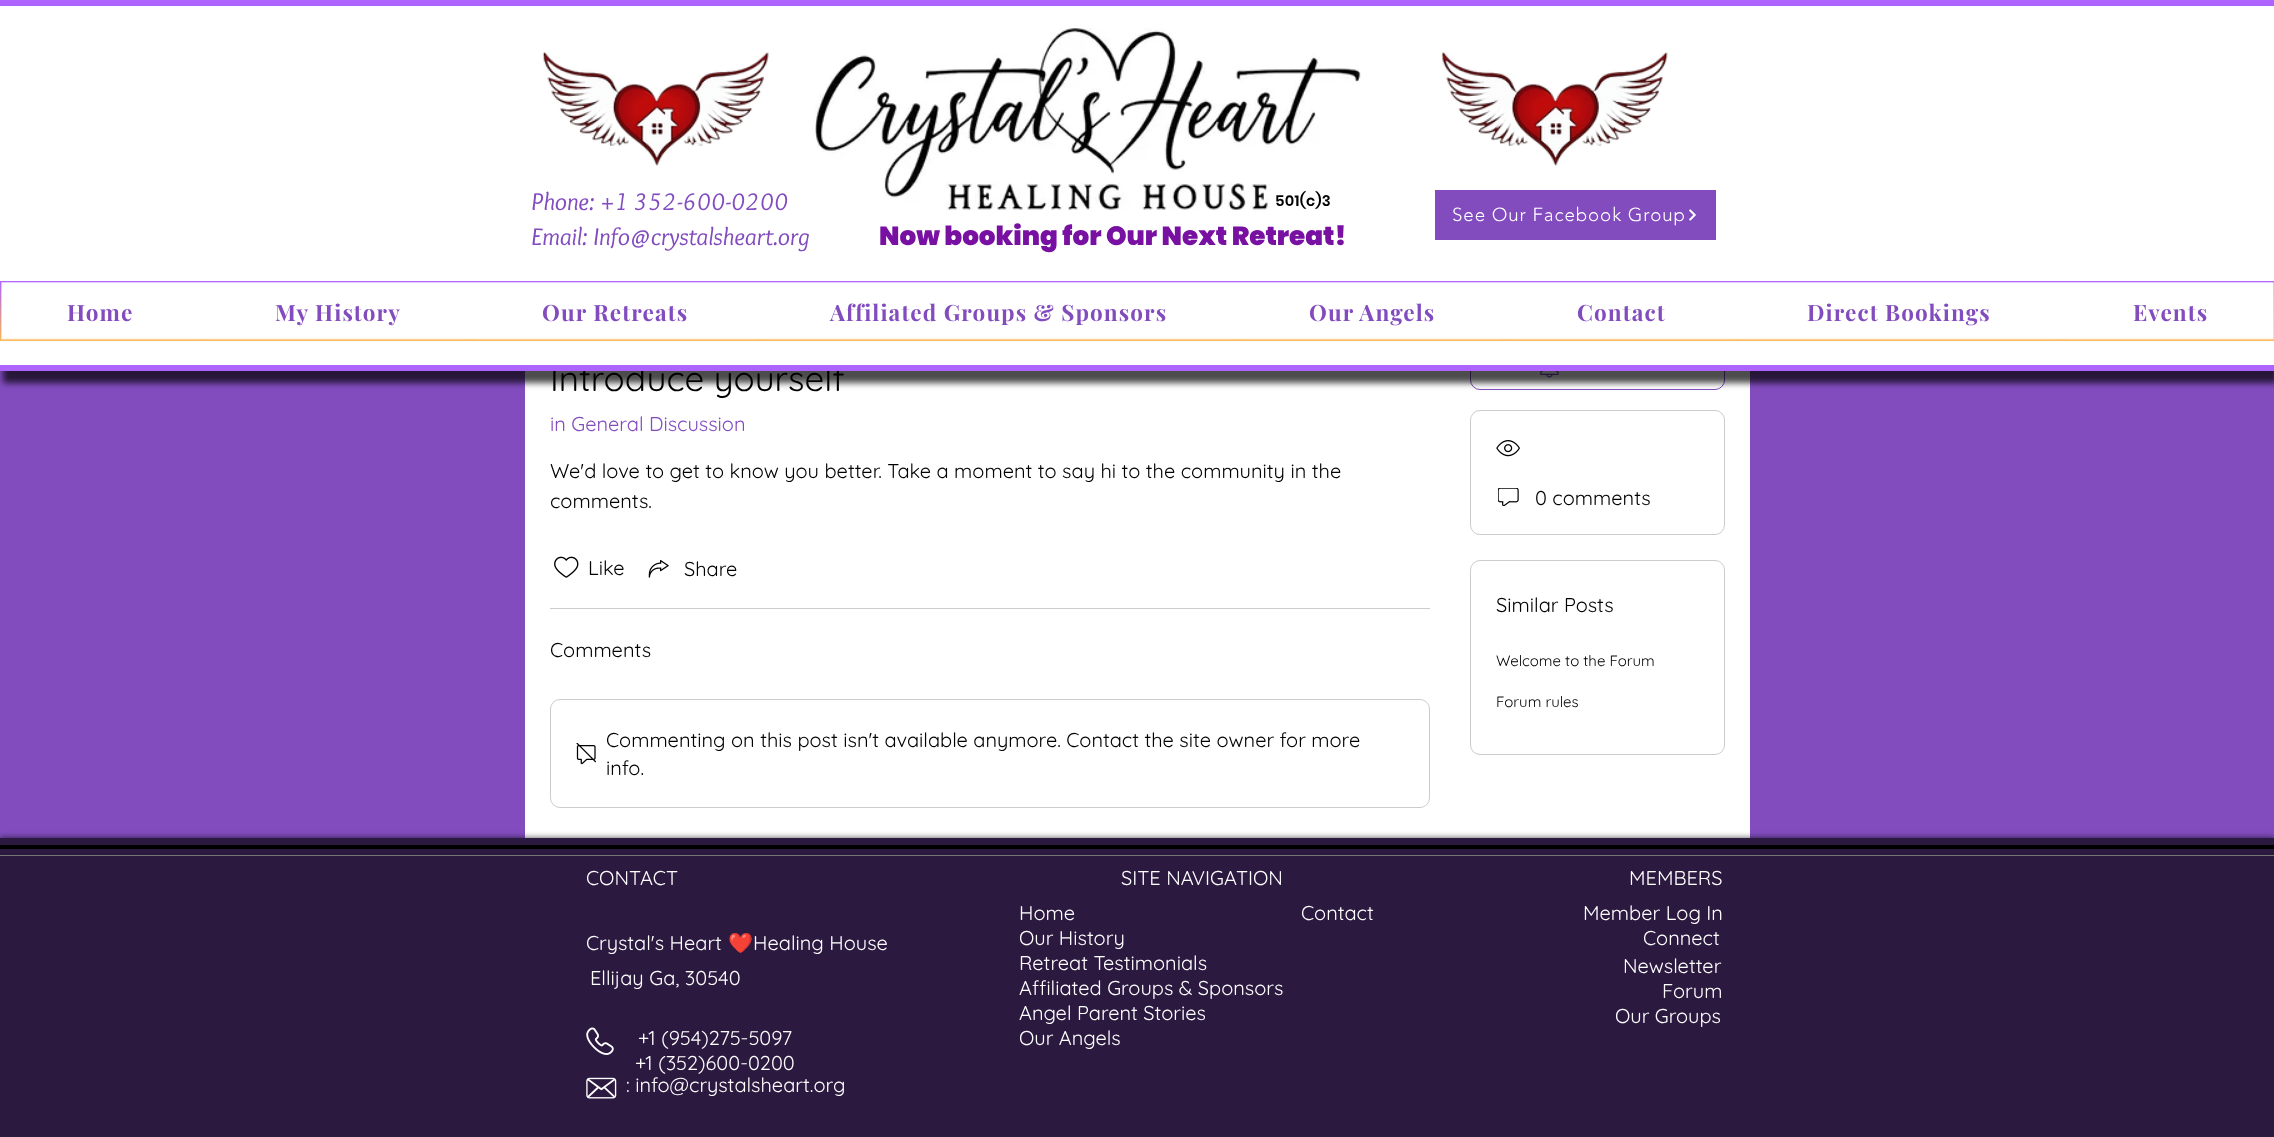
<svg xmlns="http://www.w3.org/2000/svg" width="2274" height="1137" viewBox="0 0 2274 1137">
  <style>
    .t1 { font: 35px Quicksand; fill: #000; }
    .t2 { font: italic 25px Overlock; fill: #824cbf; }
    .t3 { font: 600 15px Poppins; letter-spacing: 0.25px; fill: #000; }
    .t4 { font: 300 18.75px 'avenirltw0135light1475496'; letter-spacing: 0.9px; fill: #fff; }
    .t5 { font: 900 26.25px Poppins; fill: #7810a2; }
    .t6 { font: bold 22.5px Playfair Display; letter-spacing: 1.1px; fill: #824cbf; }
    .t7 { font: 20px Quicksand; fill: #824cbf; }
    .t8 { font: 20px Quicksand; fill: #000; }
    .t9 { font: 15px Quicksand; fill: #000; }
    .t10 { font: 20px Quicksand; fill: #fff; }
    .t11 { font: 20px Noto Color Emoji; fill: #fff; }
  </style>
  <rect width="100%" height="100%" fill="#824cbf"/>
  <rect x="525" y="371" width="1225" height="467" fill="#fff"/>
  <rect x="1470.5" y="345.5" width="254" height="44" rx="9.5" fill="none" stroke="#824cbf"/>
  <image x="1540" y="371" width="19" height="7" href="images/10.png"/>
  <rect x="3" y="11" width="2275" height="372" fill="#000000b3" filter="blur(3px)"/>
  <rect x="0" y="6" width="2274" height="359" fill="#fff"/>
  <rect x="0" y="0" width="2274" height="6" fill="#ae65ff"/>
  <text x="550" y="391" class="t1">Introduce yourself</text>
  <rect x="0" y="365" width="2274" height="6" fill="#ae65ff"/>
  <image x="542" y="52" width="227" height="114" href="images/1.png"/>
  <image x="815" y="28" width="546" height="182" href="images/2.png"/>
  <image x="1441" y="52" width="227" height="114" href="images/3.png"/>
  <text x="531" y="210" class="t2">Phone: +1 352-600-0200</text>
  <text x="531" y="245" class="t2">Email: Info@crystalsheart.org</text>
  <text x="1275" y="206" class="t3">501(c)3</text>
  <rect x="1435" y="190" width="281" height="50" fill="#824cbf"/>
  <text x="1452" y="221" class="t4">See Our Facebook Group</text>
  <image x="1689" y="209" width="7" height="12" href="images/4.png"/>
  <text x="879" y="245" class="t5">Now booking for Our Next Retreat!</text>
  <image x="0" y="281" width="2274" height="60" href="images/5.png"/>
  <rect x="1" y="283" width="198" height="57" fill="#ffffff42"/>
  <text x="67" y="321" class="t6">Home</text>
  <rect x="209" y="338" width="257" height="2" fill="#ffffff42"/>
  <text x="275" y="321" class="t6">My History</text>
  <rect x="476" y="338" width="279" height="2" fill="#ffffff42"/>
  <text x="542" y="321" class="t6">Our Retreats</text>
  <rect x="765" y="338" width="469" height="2" fill="#ffffff42"/>
  <text x="830" y="321" class="t6">Affiliated Groups &amp; Sponsors</text>
  <rect x="1244" y="338" width="257" height="2" fill="#ffffff42"/>
  <text x="1309" y="321" class="t6">Our Angels</text>
  <rect x="1511" y="338" width="220" height="2" fill="#ffffff42"/>
  <text x="1577" y="321" class="t6">Contact</text>
  <rect x="1741" y="338" width="317" height="2" fill="#ffffff42"/>
  <text x="1807" y="321" class="t6">Direct Bookings</text>
  <rect x="2068" y="283" width="206" height="57" fill="#ffffff42"/>
  <text x="2133" y="321" class="t6">Events</text>
  <image x="0" y="281" width="2274" height="60" href="images/6.png"/>
  <text x="550" y="431" class="t7">in General Discussion</text>
  <text x="550" y="478" class="t8">We'd love to get to know you better. Take a moment to say hi to the community in the</text>
  <text x="550" y="508" class="t8">comments.</text>
  <image x="554" y="556" width="25" height="22" href="images/7.png"/>
  <text x="588" y="575" class="t8">Like</text>
  <image x="648" y="560" width="21" height="18" href="images/8.png"/>
  <text x="684" y="576" class="t8">Share</text>
  <rect x="550" y="608" width="880" height="1" fill="#ccc"/>
  <text x="550" y="657" class="t8">Comments</text>
  <rect x="550.5" y="699.5" width="879" height="108" rx="9.5" fill="none" stroke="#ccc"/>
  <image x="576" y="743" width="20" height="22" href="images/9.png"/>
  <text x="606" y="747" class="t8">Commenting on this post isn't available anymore. Contact the site owner for more</text>
  <text x="606" y="775" class="t8">info.</text>
  <rect x="1470.5" y="410.5" width="254" height="124" rx="9.5" fill="none" stroke="#ccc"/>
  <image x="1496" y="440" width="24" height="17" href="images/11.png"/>
  <image x="1498" y="488" width="21" height="18" href="images/12.png"/>
  <text x="1535" y="505" class="t8">0 comments</text>
  <rect x="1470.5" y="560.5" width="254" height="194" rx="9.5" fill="none" stroke="#ccc"/>
  <text x="1496" y="612" class="t8">Similar Posts</text>
  <text x="1496" y="666" class="t9">Welcome to the Forum</text>
  <text x="1496" y="707" class="t9">Forum rules</text>
  <rect x="0" y="838" width="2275" height="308" fill="#000000b3" filter="blur(3px)"/>
  <rect x="0" y="838" width="2274" height="299" fill="#2b1940"/>
  <rect x="0" y="845" width="2274" height="4" fill="#000"/>
  <rect x="0" y="855" width="2274" height="1" fill="#757575"/>
  <text x="586" y="885" class="t10">CONTACT</text>
  <text x="586" y="950" class="t10">Crystal's Heart</text>
  <text x="728" y="950" class="t11">❤️</text>
  <text x="753" y="950" class="t10">Healing House</text>
  <image x="586" y="1027" width="28" height="28" href="images/13.png"/>
  <text x="638" y="1045" class="t10">+1 (954)275-5097</text>
  <text x="635" y="1070" class="t10">+1 (352)600-0200</text>
  <image x="586" y="1077" width="31" height="22" href="images/14.png"/>
  <text x="626" y="1092" class="t10">: info@crystalsheart.org</text>
  <text x="1121" y="885" class="t10">SITE NAVIGATION</text>
  <text x="1019" y="920" class="t10">Home</text>
  <text x="1301" y="920" class="t10">Contact</text>
  <text x="1019" y="945" class="t10">Our History</text>
  <text x="1019" y="970" class="t10">Retreat Testimonials</text>
  <text x="1019" y="995" class="t10">Affiliated Groups &amp; Sponsors</text>
  <text x="1019" y="1020" class="t10">Angel Parent Stories</text>
  <text x="1019" y="1045" class="t10">Our Angels</text>
  <text x="1629" y="885" class="t10">MEMBERS</text>
  <text x="1583" y="920" class="t10">Member Log In</text>
  <text x="1643" y="945" class="t10">Connect</text>
  <text x="1623" y="973" class="t10">Newsletter</text>
  <text x="1662" y="998" class="t10">Forum</text>
  <text x="1615" y="1023" class="t10">Our Groups</text>
  <text x="590" y="985" class="t10">Ellijay Ga, 30540</text>
</svg>
